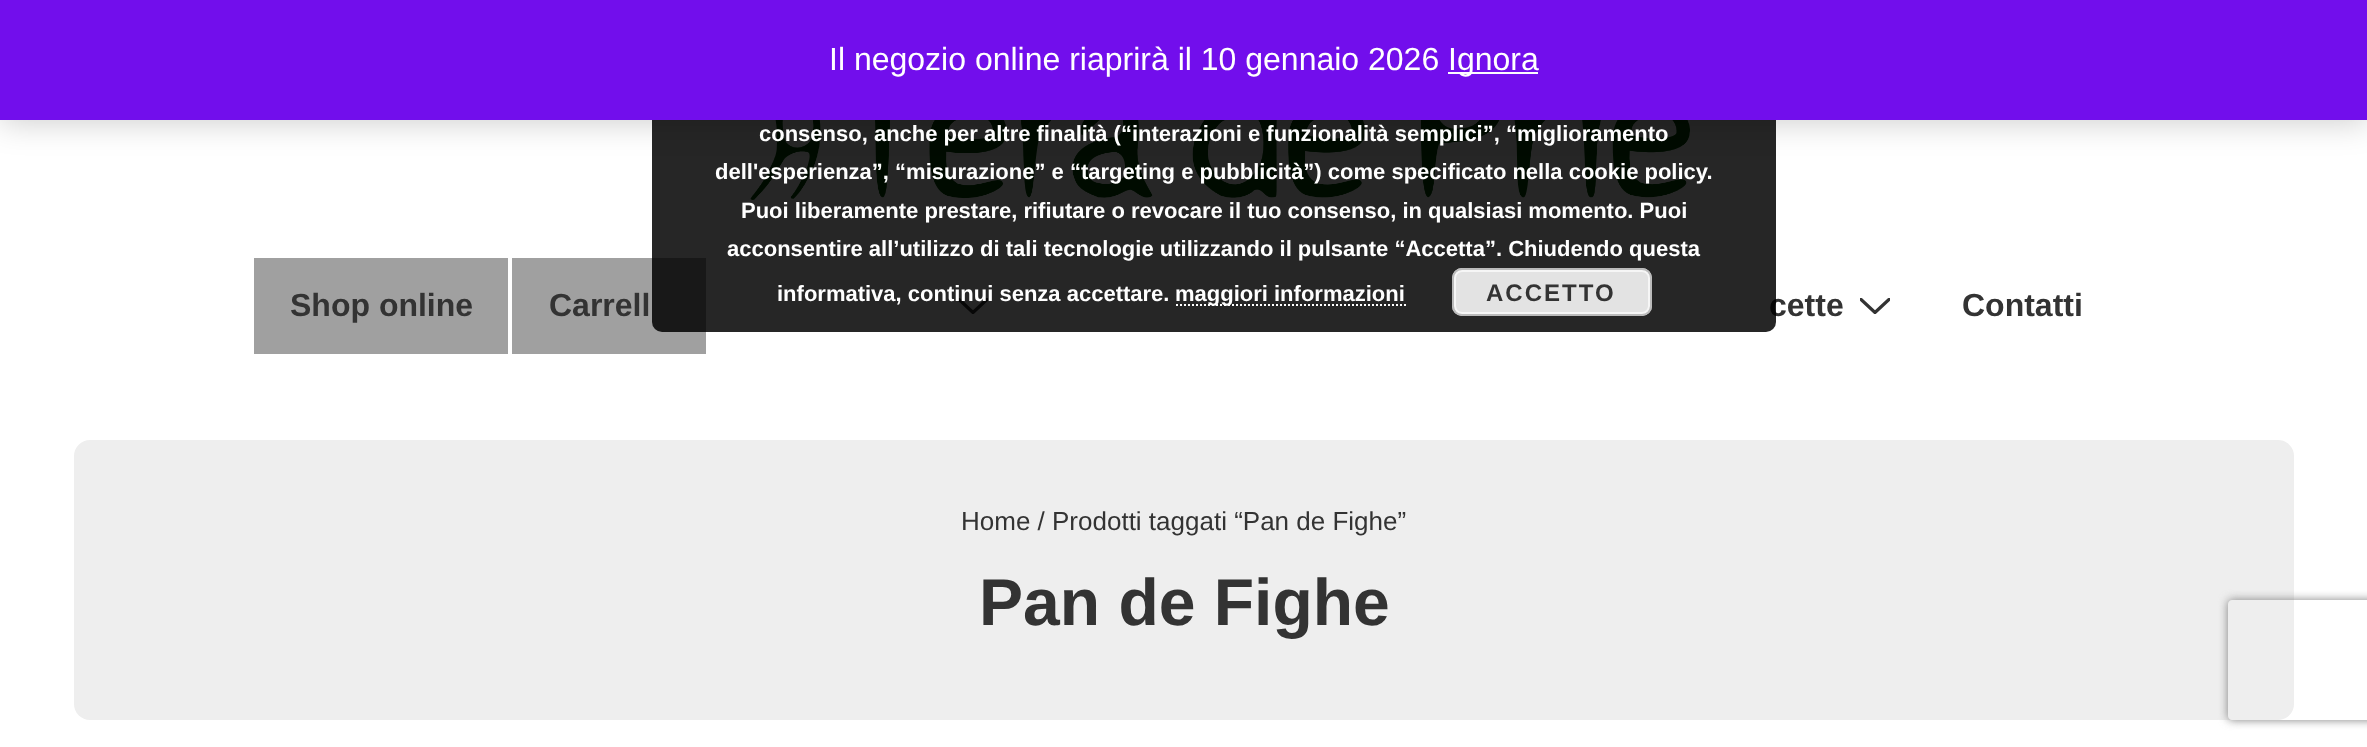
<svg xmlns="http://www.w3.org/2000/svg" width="2367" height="747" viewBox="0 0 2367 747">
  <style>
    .t1 { font: bold 32px Liberation Sans; fill: #333; }
    .t2 { font: 32px Liberation Sans; fill: #fff; }
    .t3 { font: bold 22px Liberation Sans; fill: #fff; }
    .t4 { font: bold 24px Liberation Sans; letter-spacing: 2px; fill: #333; }
    .t5 { font: 26px Liberation Sans; fill: #333; }
    .t6 { font: bold 66px Liberation Sans; fill: #333; }
  </style>
  <defs>
    <clipPath id="clip1"><rect x="958" y="298" width="30" height="16"/></clipPath>
    <clipPath id="clip2"><rect x="1860" y="298" width="30" height="16"/></clipPath>
    <clipPath id="clip3"><path d="M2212 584H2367V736H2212ZM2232 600H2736C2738 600 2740 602 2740 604V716C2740 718 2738 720 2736 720H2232C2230 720 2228 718 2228 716V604C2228 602 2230 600 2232 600Z" clip-rule="evenodd"/></clipPath>
  </defs>
  <rect width="100%" height="100%" fill="#fff"/>
  <image x="750" y="120" width="940" height="80" href="images/1.png"/>
  <rect x="512" y="258" width="194" height="96" fill="#a0a0a0"/>
  <g clip-path="url(#clip1)">
    <path d="M959 299.5L973 312.5L987 299.5" fill="none" stroke="#333" stroke-width="3.3" stroke-linecap="round"/>
  </g>
  <text x="1769" y="316" class="t1">cette</text>
  <rect x="652" y="60" width="1124" height="272" rx="10" fill="#000000d9"/>
  <rect x="0" y="2" width="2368" height="120" fill="#00000033" filter="blur(16px)"/>
  <rect x="0" y="0" width="2367" height="120" fill="#720eec"/>
  <text x="829" y="70" class="t2">Il negozio online riaprirà il 10 gennaio 2026</text>
  <rect x="1448" y="72" width="90" height="2" fill="#fcfbfe"/>
  <text x="1448" y="70" class="t2">Ignora</text>
  <text x="759" y="141" class="t3">consenso, anche per altre finalità (“interazioni e funzionalità semplici”, “miglioramento</text>
  <text x="715" y="179" class="t3">dell'esperienza”, “misurazione” e “targeting e pubblicità”) come specificato nella cookie policy.</text>
  <text x="741" y="218" class="t3">Puoi liberamente prestare, rifiutare o revocare il tuo consenso, in qualsiasi momento. Puoi</text>
  <text x="727" y="256" class="t3">acconsentire all’utilizzo di tali tecnologie utilizzando il pulsante “Accetta”. Chiudendo questa</text>
  <text x="777" y="301" class="t3">informativa, continui senza accettare.</text>
  <path d="M1176 305H1406" fill="none" stroke="#fff" stroke-width="2" stroke-dasharray="2 2"/>
  <text x="1175" y="301" class="t3">maggiori informazioni</text>
  <rect x="1452" y="268" width="200" height="48" rx="10" fill="#e3e3e3"/>
  <rect x="1455" y="271" width="194" height="42" rx="7" fill="none" stroke="#f6f6f6" stroke-width="2"/>
  <rect x="1453" y="269" width="198" height="46" rx="9" fill="none" stroke="#bbb" stroke-width="2"/>
  <text x="1486" y="301" class="t4">ACCETTO</text>
  <rect x="254" y="258" width="254" height="96" fill="#a0a0a0"/>
  <text x="290" y="316" class="t1">Shop online</text>
  <text x="549" y="316" class="t1">Carrell</text>
  <g clip-path="url(#clip2)">
    <path d="M1861 299.5L1875 312.5L1889 299.5" fill="none" stroke="#333" stroke-width="3.3" stroke-linecap="round"/>
  </g>
  <text x="1962" y="316" class="t1">Contatti</text>
  <rect x="74" y="440" width="2220" height="280" rx="16" fill="#eee"/>
  <text x="961" y="530" class="t5">Home / Prodotti taggati “Pan de Fighe”</text>
  <text x="979" y="625" class="t6">Pan de Fighe</text>
  <g clip-path="url(#clip3)">
    <rect x="2228" y="600" width="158" height="120" rx="4" fill="#808080" filter="blur(5px)"/>
  </g>
</svg>
